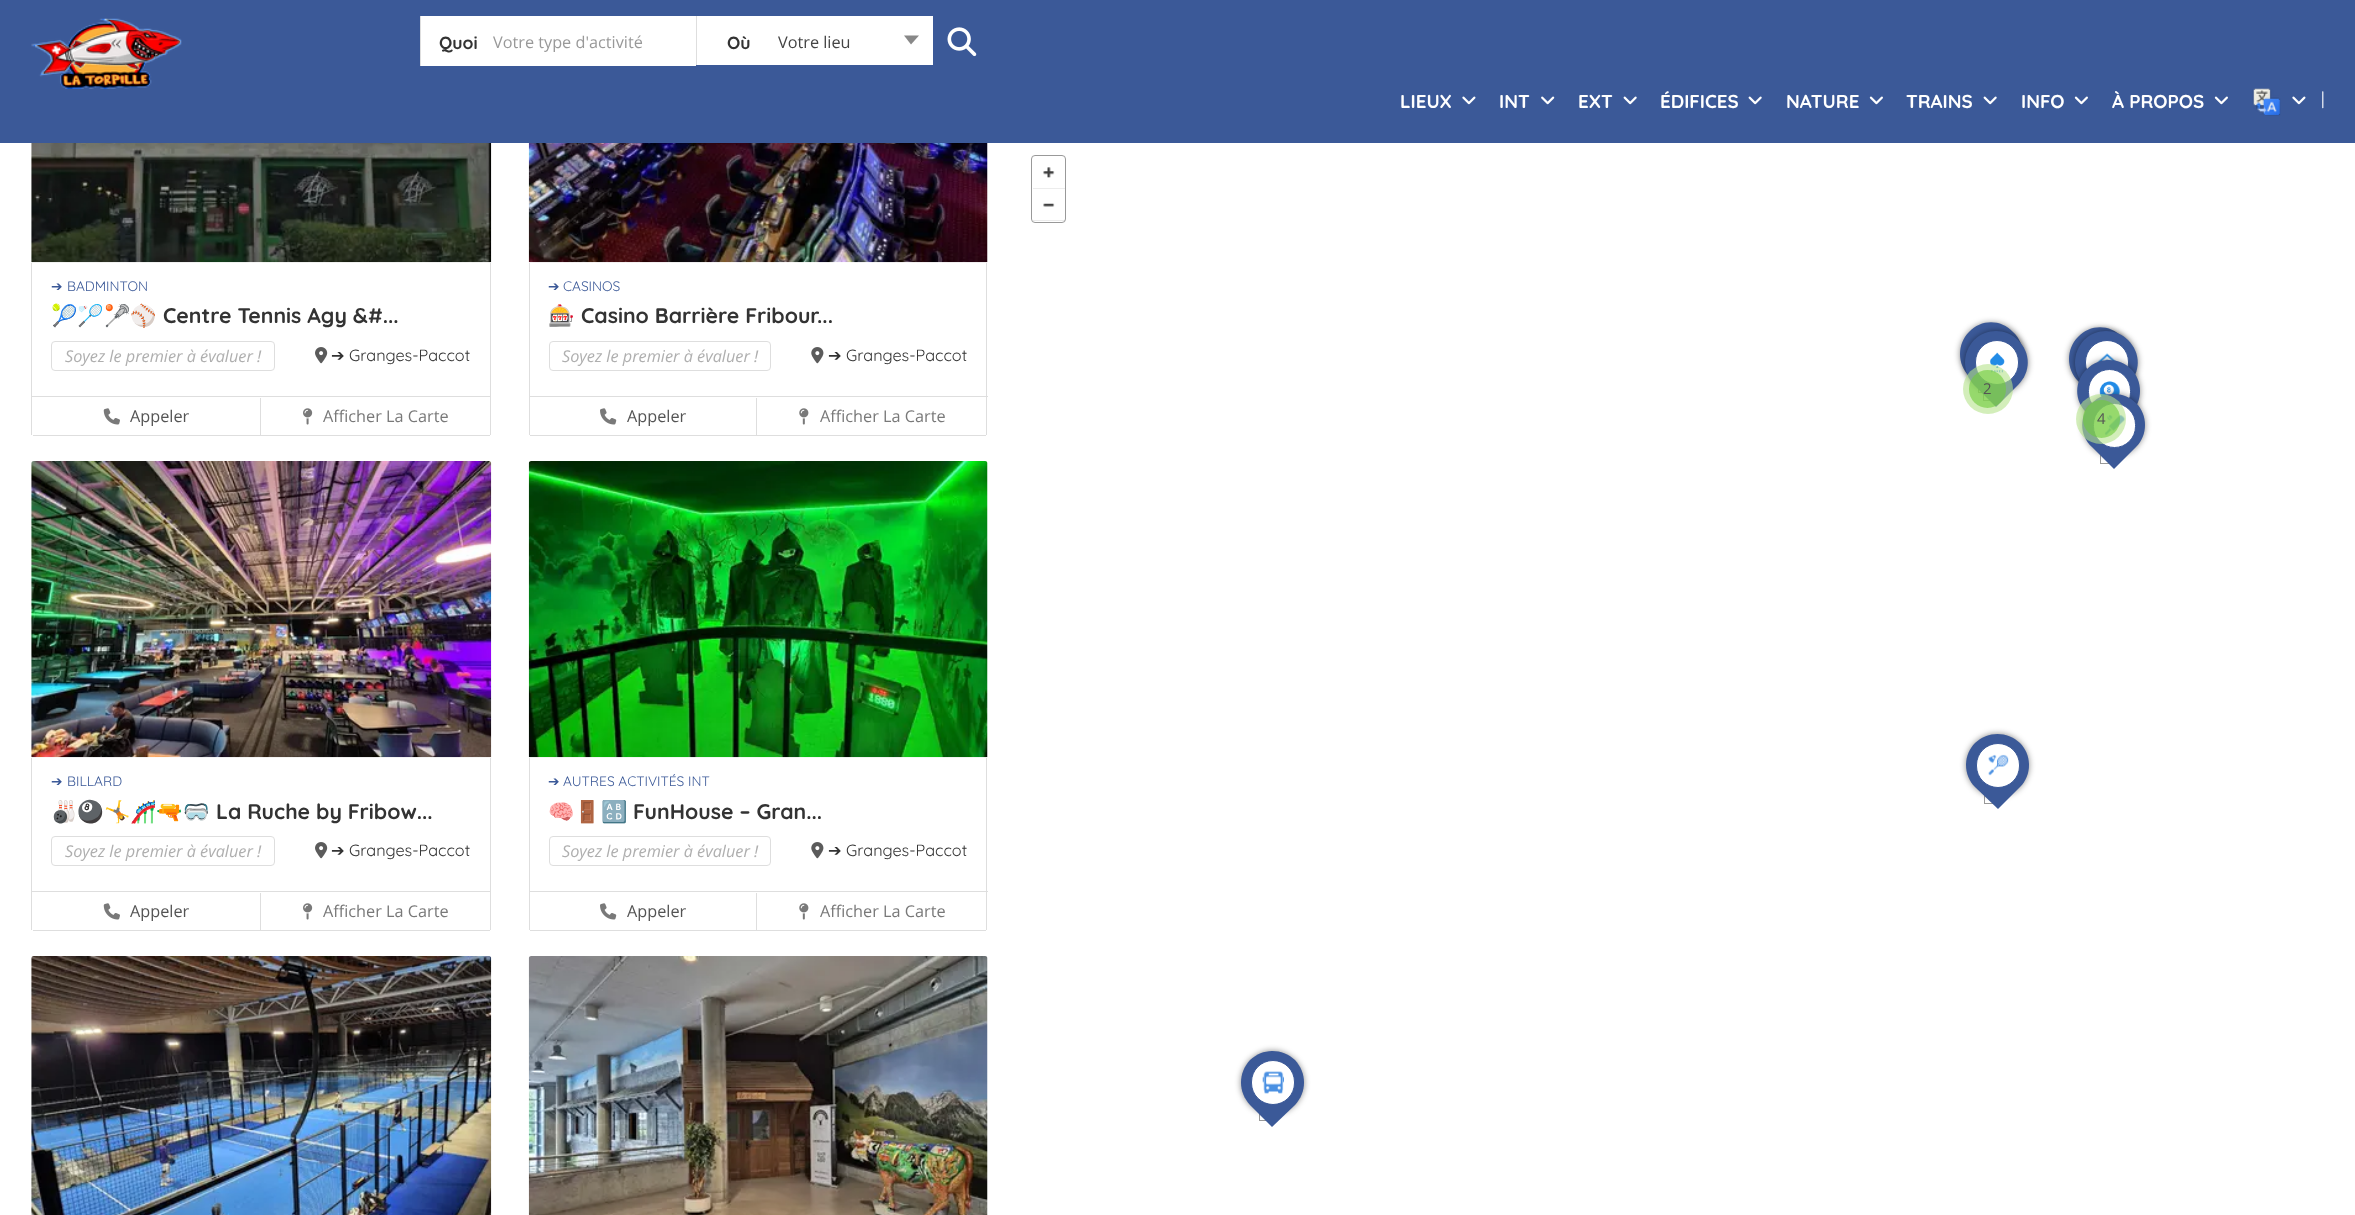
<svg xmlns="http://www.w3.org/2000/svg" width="2355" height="1215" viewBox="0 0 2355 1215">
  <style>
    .t1 { font: bold 17.5px Quicksand; fill: #333; }
    .t2 { font: 16.25px Open Sans; fill: #999; }
    .t3 { font: 16.25px Open Sans; fill: #444; }
    .t4 { font: bold 18.75px Quicksand; fill: #fff; }
    .t5 { font: 17.5px Quicksand; fill: #fff; }
    .t6 { font: 13.75px DejaVu Sans; fill: #3b5998; }
    .t7 { font: 13.75px Quicksand; fill: #3b5998; }
    .t8 { font: bold 21.25px Noto Color Emoji; fill: #333; }
    .t9 { font: bold 21.25px Quicksand; fill: #333; }
    .t10 { font: italic 16.25px Open Sans; fill: #afafaf; }
    .t11 { font: 16.25px DejaVu Sans; fill: #333; }
    .t12 { font: 16.25px Quicksand; fill: #333; }
    .t13 { font: 16.25px Open Sans; fill: #545454; }
    .t14 { font: 16.25px Open Sans; fill: #797979; }
    .t15 { font: 15px Open Sans; fill: #545454; }
  </style>
  <rect width="100%" height="100%" fill="#fff"/>
  <rect x="0" y="0" width="2355" height="143" fill="#3b5998"/>
  <image x="31" y="18" width="151" height="71" href="images/1.png"/>
  <rect x="421" y="16" width="275" height="50" fill="#fff"/>
  <rect x="420" y="16" width="1" height="50" fill="#dedede"/>
  <text x="439" y="49" class="t1">Quoi</text>
  <text x="493" y="48" class="t2">Votre type d'activité</text>
  <rect x="697" y="16" width="236" height="49" fill="#fff"/>
  <rect x="696" y="16" width="1" height="49" fill="#dedede"/>
  <text x="727" y="49" class="t1">Où</text>
  <text x="778" y="48" class="t3">Votre lieu</text>
  <path d="M904 35.5H919L911 44.5Z" fill="#888"/>
  <image x="947" y="27" width="30" height="30" href="images/2.png"/>
  <text x="1400" y="108" class="t4">LIEUX</text>
  <image x="1462" y="96" width="14" height="9" href="images/3.png"/>
  <text x="1499" y="108" class="t4">INT</text>
  <image x="1541" y="96" width="14" height="9" href="images/4.png"/>
  <text x="1578" y="108" class="t4">EXT</text>
  <image x="1623" y="96" width="14" height="9" href="images/5.png"/>
  <text x="1660" y="108" class="t4">ÉDIFICES</text>
  <image x="1748" y="96" width="14" height="9" href="images/5.png"/>
  <text x="1786" y="108" class="t4">NATURE</text>
  <image x="1869" y="96" width="14" height="9" href="images/6.png"/>
  <text x="1906" y="108" class="t4">TRAINS</text>
  <image x="1983" y="96" width="14" height="9" href="images/5.png"/>
  <text x="2021" y="108" class="t4">INFO</text>
  <image x="2074" y="96" width="14" height="9" href="images/6.png"/>
  <text x="2112" y="108" class="t4">À PROPOS</text>
  <image x="2214" y="96" width="14" height="9" href="images/6.png"/>
  <image x="2252" y="88" width="29" height="28" href="images/7.png"/>
  <image x="2292" y="96" width="14" height="9" href="images/3.png"/>
  <text x="2321" y="105" class="t5">|</text>
  <image x="31" y="143" width="461" height="120" href="images/8.png"/>
  <rect x="490" y="263" width="1" height="172" fill="#dedede"/>
  <rect x="31" y="396" width="460" height="1" fill="#dedede"/>
  <rect x="31" y="263" width="1" height="172" fill="#dedede"/>
  <text x="51" y="291" class="t6">➔</text>
  <text x="67" y="291" class="t7">BADMINTON</text>
  <text x="51" y="323" class="t8">🎾🏸🥍⚾</text>
  <text x="163" y="323" class="t9">Centre Tennis Agy &amp;#...</text>
  <rect x="51.5" y="341.5" width="223" height="29" rx="3.5" fill="none" stroke="#dedede"/>
  <text x="65" y="362" class="t10">Soyez le premier à évaluer !</text>
  <image x="315" y="347" width="13" height="17" href="images/9.png"/>
  <text x="331" y="361" class="t11">➔</text>
  <text x="349" y="361" class="t12">Granges-Paccot</text>
  <rect x="33" y="435" width="457" height="1" fill="#dedede"/>
  <rect x="260" y="398" width="1" height="37" fill="#dedede"/>
  <image x="103" y="408" width="17" height="17" href="images/10.png"/>
  <text x="130" y="422" class="t13">Appeler</text>
  <image x="303" y="408" width="10" height="17" href="images/11.png"/>
  <text x="323" y="422" class="t14">Afficher La Carte</text>
  <image x="528" y="143" width="460" height="120" href="images/12.png"/>
  <rect x="986" y="263" width="1" height="172" fill="#dedede"/>
  <rect x="529" y="396" width="459" height="1" fill="#dedede"/>
  <rect x="529" y="263" width="1" height="172" fill="#dedede"/>
  <text x="548" y="291" class="t6">➔</text>
  <text x="563" y="291" class="t7">CASINOS</text>
  <text x="548" y="323" class="t8">🎰</text>
  <text x="581" y="323" class="t9">Casino Barrière Fribour...</text>
  <rect x="549.5" y="341.5" width="221" height="29" rx="3.5" fill="none" stroke="#dedede"/>
  <text x="562" y="362" class="t10">Soyez le premier à évaluer !</text>
  <image x="811" y="347" width="13" height="17" href="images/13.png"/>
  <text x="828" y="361" class="t11">➔</text>
  <text x="846" y="361" class="t12">Granges-Paccot</text>
  <rect x="530" y="435" width="456" height="1" fill="#dedede"/>
  <rect x="756" y="398" width="1" height="37" fill="#dedede"/>
  <image x="600" y="408" width="17" height="17" href="images/14.png"/>
  <text x="627" y="422" class="t13">Appeler</text>
  <image x="799" y="408" width="10" height="17" href="images/15.png"/>
  <text x="820" y="422" class="t14">Afficher La Carte</text>
  <image x="31" y="461" width="461" height="297" href="images/16.png"/>
  <rect x="490" y="758" width="1" height="172" fill="#dedede"/>
  <rect x="31" y="891" width="460" height="1" fill="#dedede"/>
  <rect x="31" y="758" width="1" height="172" fill="#dedede"/>
  <text x="51" y="786" class="t6">➔</text>
  <text x="67" y="786" class="t7">BILLARD</text>
  <text x="51" y="819" class="t8">🎳🎱🤸🎢🔫🥽</text>
  <text x="216" y="819" class="t9">La Ruche by Fribow...</text>
  <rect x="51.5" y="836.5" width="223" height="29" rx="3.5" fill="none" stroke="#dedede"/>
  <text x="65" y="857" class="t10">Soyez le premier à évaluer !</text>
  <image x="315" y="842" width="13" height="17" href="images/9.png"/>
  <text x="331" y="856" class="t11">➔</text>
  <text x="349" y="856" class="t12">Granges-Paccot</text>
  <rect x="33" y="930" width="457" height="1" fill="#dedede"/>
  <rect x="260" y="893" width="1" height="37" fill="#dedede"/>
  <image x="103" y="903" width="17" height="17" href="images/10.png"/>
  <text x="130" y="917" class="t13">Appeler</text>
  <image x="303" y="903" width="10" height="17" href="images/11.png"/>
  <text x="323" y="917" class="t14">Afficher La Carte</text>
  <image x="528" y="461" width="460" height="297" href="images/17.png"/>
  <rect x="986" y="758" width="1" height="172" fill="#dedede"/>
  <rect x="529" y="891" width="459" height="1" fill="#dedede"/>
  <rect x="529" y="758" width="1" height="172" fill="#dedede"/>
  <text x="548" y="786" class="t6">➔</text>
  <text x="563" y="786" class="t7">AUTRES ACTIVITÉS INT</text>
  <text x="548" y="819" class="t8">🧠🚪🔠</text>
  <text x="633" y="819" class="t9">FunHouse – Gran...</text>
  <rect x="549.5" y="836.5" width="221" height="29" rx="3.5" fill="none" stroke="#dedede"/>
  <text x="562" y="857" class="t10">Soyez le premier à évaluer !</text>
  <image x="811" y="842" width="13" height="17" href="images/13.png"/>
  <text x="828" y="856" class="t11">➔</text>
  <text x="846" y="856" class="t12">Granges-Paccot</text>
  <rect x="530" y="930" width="456" height="1" fill="#dedede"/>
  <rect x="756" y="893" width="1" height="37" fill="#dedede"/>
  <image x="600" y="903" width="17" height="17" href="images/14.png"/>
  <text x="627" y="917" class="t13">Appeler</text>
  <image x="799" y="903" width="10" height="17" href="images/15.png"/>
  <text x="820" y="917" class="t14">Afficher La Carte</text>
  <image x="31" y="956" width="461" height="259" href="images/18.png"/>
  <image x="528" y="956" width="460" height="259" href="images/19.png"/>
  <rect x="1031.5" y="155.5" width="34" height="67" rx="3.5" fill="none" stroke="#999"/>
  <image x="1043" y="167" width="12" height="11" href="images/20.png"/>
  <rect x="1033" y="188" width="32" height="1" fill="#ececec"/>
  <image x="1043" y="203" width="12" height="4" href="images/21.png"/>
  <rect x="1033" y="220" width="32" height="1" fill="#00000014"/>
  <rect x="1978.5" y="378.5" width="14" height="14" fill="none" stroke="#999"/>
  <rect x="1960" y="323" width="63" height="62" rx="31" fill="#00000078" filter="blur(3px)"/>
  <path d="M1969 332C1981 319 2001 319 2013 332C2026 344 2026 364 2013 376L1991 398L1969 376C1957 364 1957 344 1969 332Z" fill="#3b5998"/>
  <rect x="2069" y="328" width="62" height="62" rx="31" fill="#00000078" filter="blur(3px)"/>
  <path d="M2078 337C2090 324 2110 324 2122 337C2134 349 2134 369 2122 381L2100 403L2078 381C2066 369 2066 349 2078 337Z" fill="#3b5998"/>
  <rect x="1984" y="395" width="5" height="1" fill="#fff"/>
  <rect x="1983.5" y="386.5" width="14" height="14" fill="none" stroke="#999"/>
  <rect x="1965" y="331" width="63" height="63" rx="31.5" fill="#00000078" filter="blur(3px)"/>
  <path d="M1974 340C1986 328 2006 328 2018 340C2031 353 2031 372 2018 385L1996 407L1974 385C1962 372 1962 353 1974 340Z" fill="#3b5998"/>
  <rect x="1975.5" y="340.5" width="43" height="44" rx="21.5" fill="#fff" stroke="#3b5998"/>
  <image x="1990" y="352" width="15" height="21" href="images/22.png"/>
  <rect x="2075" y="331" width="63" height="63" rx="31.5" fill="#00000078" filter="blur(3px)"/>
  <path d="M2084 340C2096 328 2116 328 2128 340C2141 353 2141 372 2128 385L2106 407L2084 385C2072 372 2072 353 2084 340Z" fill="#3b5998"/>
  <rect x="2085.5" y="340.5" width="43" height="44" rx="21.5" fill="#fff" stroke="#3b5998"/>
  <image x="2097" y="353" width="19" height="10" href="images/23.png"/>
  <circle cx="1988" cy="389" r="25" fill="#b5e28c99"/>
  <rect x="1969" y="370" width="37" height="38" rx="18.5" fill="#6ecc3999"/>
  <text x="1983" y="394" class="t15">2</text>
  <rect x="2078" y="360" width="62" height="63" rx="31" fill="#00000078" filter="blur(3px)"/>
  <path d="M2087 369C2099 357 2119 357 2131 369C2143 381 2143 401 2131 413L2109 435L2087 413C2074 401 2074 381 2087 369Z" fill="#3b5998"/>
  <rect x="2088.5" y="369.5" width="42" height="44" rx="21" fill="#fff" stroke="#3b5998"/>
  <image x="2099" y="381" width="21" height="16" href="images/24.png"/>
  <rect x="2100.5" y="449.5" width="14" height="14" fill="none" stroke="#999"/>
  <rect x="2083" y="394" width="62" height="62" rx="31" fill="#00000078" filter="blur(3px)"/>
  <path d="M2092 403C2104 391 2124 391 2136 403C2148 415 2148 435 2136 447L2114 469L2092 447C2079 435 2079 415 2092 403Z" fill="#3b5998"/>
  <rect x="2093.5" y="403.5" width="42" height="44" rx="21" fill="#fff" stroke="#3b5998"/>
  <image x="2104" y="414" width="21" height="22" href="images/25.png"/>
  <circle cx="2101" cy="419" r="25" fill="#b5e28c99"/>
  <rect x="2083" y="400" width="37" height="38" rx="18.5" fill="#6ecc3999"/>
  <text x="2097" y="424" class="t15">4</text>
  <rect x="1984.5" y="789.5" width="14" height="14" fill="none" stroke="#999"/>
  <rect x="1966" y="734" width="63" height="62" rx="31" fill="#00000078" filter="blur(3px)"/>
  <path d="M1975 743C1988 731 2007 731 2020 743C2032 755 2032 775 2020 787L1998 809L1975 787C1963 775 1963 755 1975 743Z" fill="#3b5998"/>
  <rect x="1976.5" y="743.5" width="43" height="44" rx="21.5" fill="#fff" stroke="#3b5998"/>
  <image x="1988" y="754" width="21" height="22" href="images/26.png"/>
  <rect x="1259.5" y="1106.5" width="14" height="14" fill="none" stroke="#999"/>
  <rect x="1241" y="1051" width="63" height="63" rx="31.5" fill="#00000078" filter="blur(3px)"/>
  <path d="M1250 1060C1263 1048 1282 1048 1295 1060C1307 1073 1307 1092 1295 1105L1272 1127L1250 1105C1238 1092 1238 1073 1250 1060Z" fill="#3b5998"/>
  <rect x="1251.5" y="1060.5" width="43" height="44" rx="21.5" fill="#fff" stroke="#3b5998"/>
  <image x="1262" y="1071" width="22" height="23" href="images/27.png"/>
</svg>
